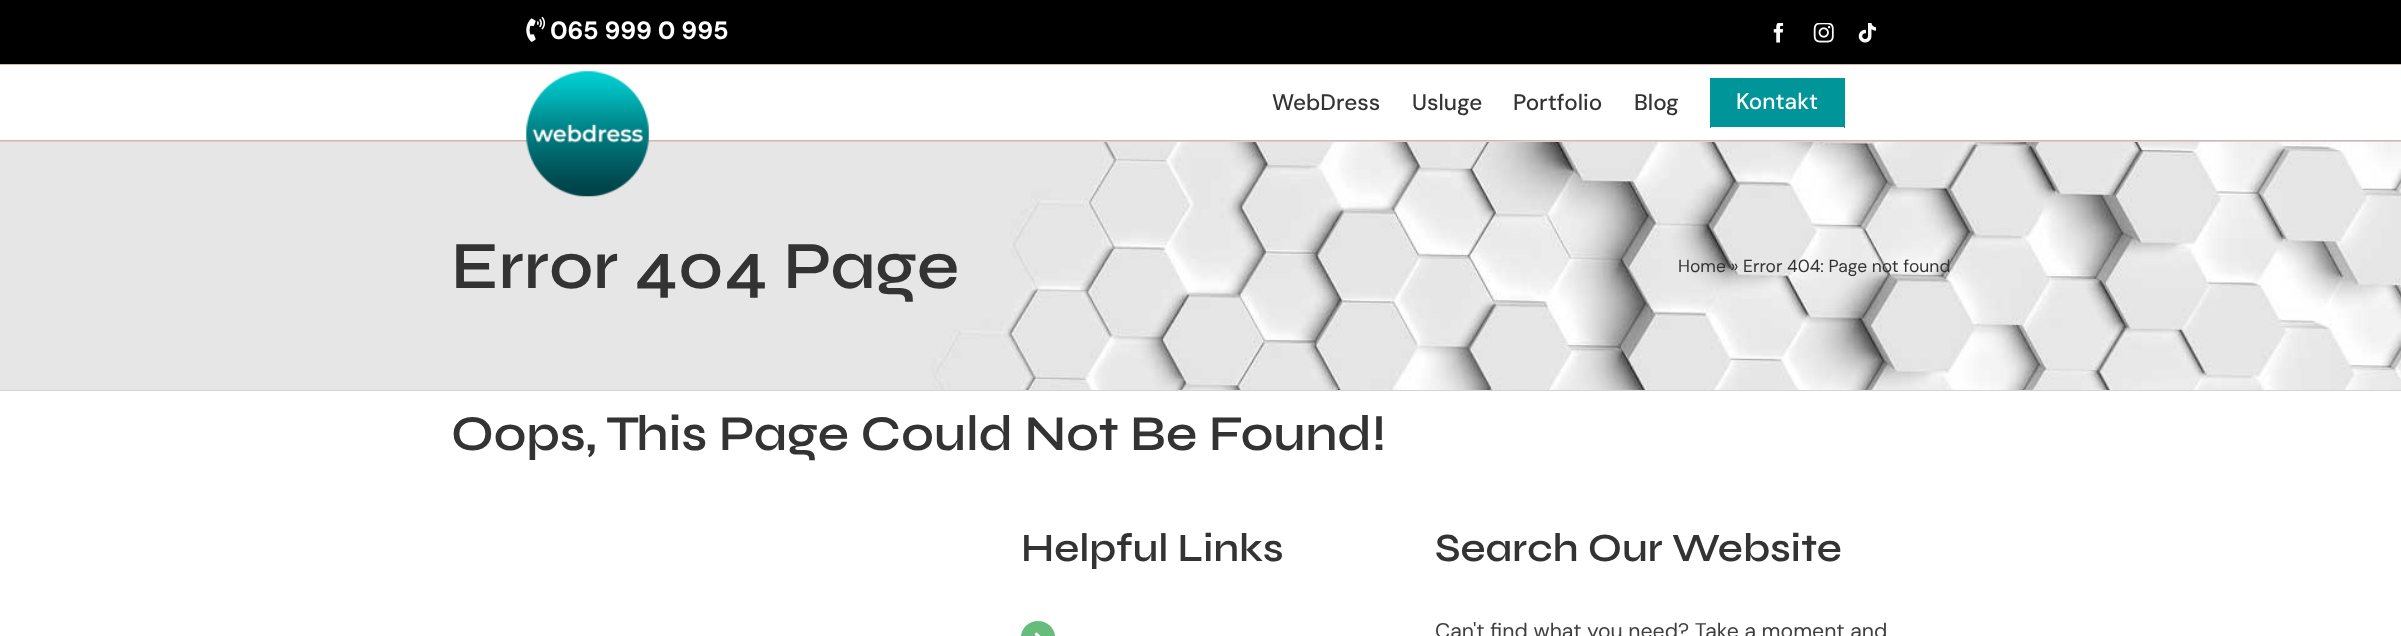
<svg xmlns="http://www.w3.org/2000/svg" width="2401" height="636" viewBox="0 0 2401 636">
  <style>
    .t1 { font: bold 25px DM Sans; fill: #fff; }
    .t2 { font: 500 22.5px DM Sans; fill: #333; }
    .t3 { font: 500 22.5px DM Sans; fill: #fff; }
    .t4 { font: 600 67.5px Syne; fill: #333; }
    .t5 { font: 17.5px DM Sans; fill: #333; }
    .t6 { font: 600 50px Syne; fill: #333; }
    .t7 { font: 600 40px Syne; fill: #333; }
    .t8 { font: 21.25px DM Sans; fill: #3f3f3f; }
  </style>
  <rect width="100%" height="100%" fill="#fff"/>
  <rect x="0" y="0" width="2401" height="64" fill="#000"/>
  <rect x="0" y="64" width="2401" height="1" fill="#dab3a6"/>
  <image x="526" y="16" width="19" height="26" href="images/1.png"/>
  <text x="550" y="39" class="t1">065 999 0 995</text>
  <image x="1773" y="23" width="11" height="20" href="images/2.png"/>
  <image x="1813" y="23" width="21" height="20" href="images/3.png"/>
  <image x="1858" y="23" width="18" height="20" href="images/4.png"/>
  <rect x="0" y="140" width="2401" height="1" fill="#dab3a6"/>
  <image x="0" y="142" width="2401" height="248" href="images/6.png"/>
  <rect x="0" y="141" width="2401" height="1" fill="#d2d3d4"/>
  <image x="526" y="71" width="123" height="126" href="images/5.png"/>
  <text x="1272" y="110" class="t2">WebDress</text>
  <text x="1412" y="110" class="t2">Usluge</text>
  <text x="1513" y="110" class="t2">Portfolio</text>
  <text x="1634" y="110" class="t2">Blog</text>
  <rect x="1711" y="78" width="133" height="48" fill="#009598"/>
  <rect x="1844" y="78" width="1" height="50" fill="#009598"/>
  <rect x="1710" y="126" width="135" height="1" fill="#009598"/>
  <rect x="1710" y="78" width="1" height="50" fill="#009598"/>
  <text x="1736" y="109" class="t3">Kontakt</text>
  <rect x="0" y="390" width="2401" height="1" fill="#d2d3d4"/>
  <text x="451" y="288" class="t4">Error 404 Page</text>
  <text x="1678" y="272" class="t5">Home » Error 404: Page not found</text>
  <text x="451" y="450" class="t6">Oops, This Page Could Not Be Found!</text>
  <text x="1021" y="561" class="t7">Helpful Links</text>
  <rect x="1021" y="621" width="34" height="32" rx="17" fill="#65bc7b"/>
  <image x="1034" y="632" width="7" height="4" href="images/7.png"/>
  <text x="1435" y="561" class="t7">Search Our Website</text>
  <text x="1435" y="638" class="t8">Can't find what you need? Take a moment and</text>
</svg>
